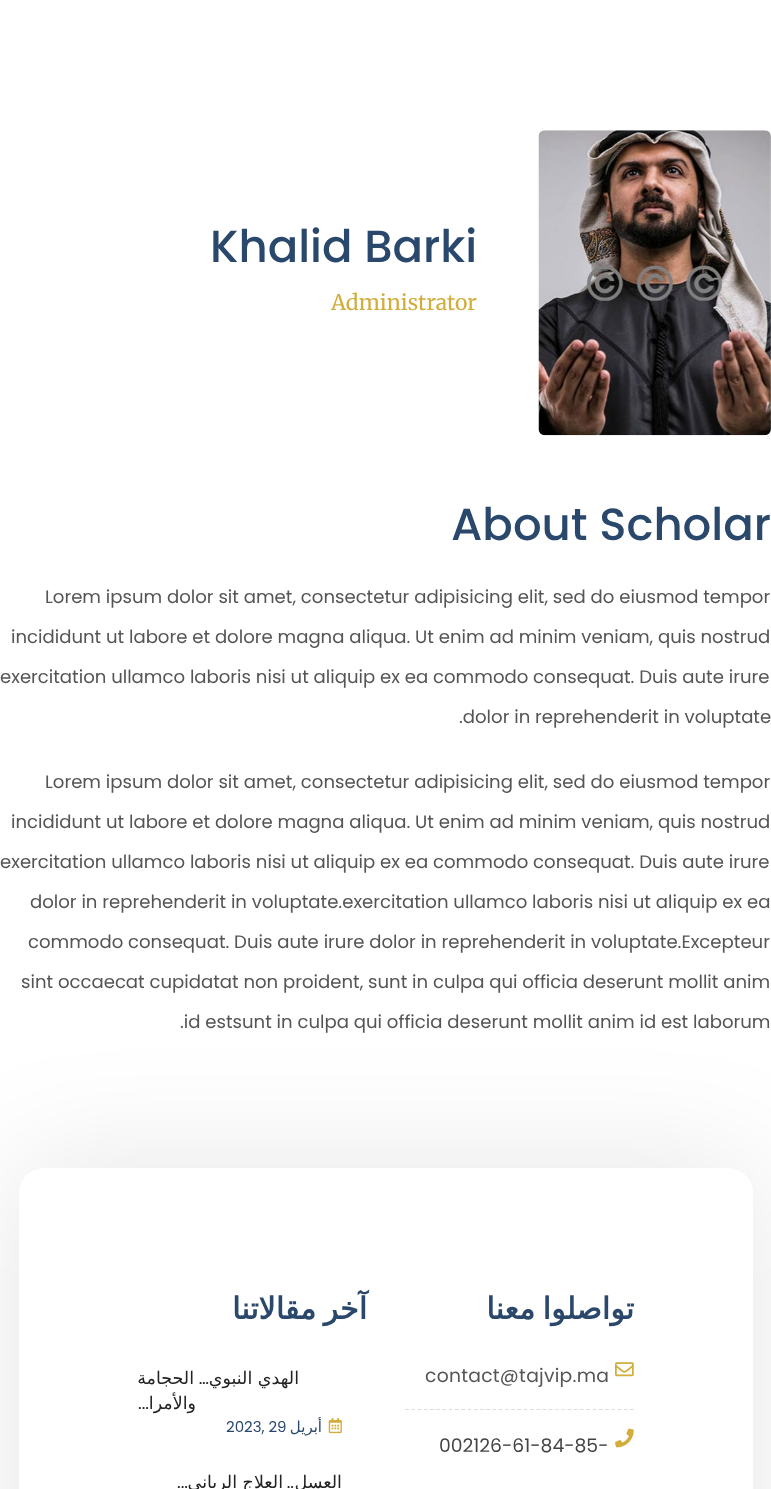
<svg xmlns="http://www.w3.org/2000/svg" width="771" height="1489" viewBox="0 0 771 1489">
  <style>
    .t1 { font: 500 45px Poppins; fill: #2a486c; }
    .t2 { font: 21.25px Merriweather; fill: #d1ad3c; }
    .t3 { font: 18.1px Poppins; fill: #555; }
    .t4 { font: bold 30px DejaVu Sans; direction: rtl; fill: #2a486c; }
    .t5 { font: 17.5px DejaVu Sans; direction: rtl; fill: #222; }
    .t6 { font: 17.5px Poppins; direction: rtl; fill: #222; }
    .t7 { font: 15px Poppins; fill: #2a486c; }
    .t8 { font: 15px DejaVu Sans; direction: rtl; fill: #2a486c; }
    .t9 { font: 18.75px Poppins; letter-spacing: 0.25px; fill: #555; }
    .t10 { font: 18.75px Poppins; fill: #444; }
  </style>
  <rect width="100%" height="100%" fill="#fff"/>
  <text x="210" y="262" class="t1">Khalid Barki</text>
  <text x="331" y="310" class="t2">Administrator</text>
  <image x="538" y="130" width="233" height="306" href="images/1.png"/>
  <text x="451" y="540" class="t1">About Scholar</text>
  <text x="45" y="603" class="t3">Lorem ipsum dolor sit amet, consectetur adipisicing elit, sed do eiusmod tempor</text>
  <text x="11" y="643" class="t3">incididunt ut labore et dolore magna aliqua. Ut enim ad minim veniam, quis nostrud</text>
  <text x="0" y="683" class="t3">exercitation ullamco laboris nisi ut aliquip ex ea commodo consequat. Duis aute irure</text>
  <text x="459" y="723" class="t3">.dolor in reprehenderit in voluptate</text>
  <text x="45" y="788" class="t3">Lorem ipsum dolor sit amet, consectetur adipisicing elit, sed do eiusmod tempor</text>
  <text x="11" y="828" class="t3">incididunt ut labore et dolore magna aliqua. Ut enim ad minim veniam, quis nostrud</text>
  <text x="0" y="868" class="t3">exercitation ullamco laboris nisi ut aliquip ex ea commodo consequat. Duis aute irure</text>
  <text x="30" y="908" class="t3">dolor in reprehenderit in voluptate.exercitation ullamco laboris nisi ut aliquip ex ea</text>
  <text x="28" y="948" class="t3">commodo consequat. Duis aute irure dolor in reprehenderit in voluptate.Excepteur</text>
  <text x="21" y="988" class="t3">sint occaecat cupidatat non proident, sunt in culpa qui officia deserunt mollit anim</text>
  <text x="180" y="1028" class="t3">.id estsunt in culpa qui officia deserunt mollit anim id est laborum</text>
  <rect x="19" y="1168" width="734" height="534" rx="25" fill="#0000001a" filter="blur(62.5px)"/>
  <rect x="19" y="1168" width="734" height="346" rx="25" fill="#fff"/>
  <text x="367" y="1319" word-spacing="-2" class="t4">آخر مقالاتنا</text>
  <text x="194" y="1384" class="t5">الحجامة</text>
  <text x="209" y="1384" class="t6">…</text>
  <text x="299" y="1384" class="t5">الهدي النبوي</text>
  <text x="149" y="1409" class="t6">...</text>
  <text x="196" y="1409" class="t5">والأمرا</text>
  <text x="226" y="1432" class="t7">2023, 29</text>
  <text x="322" y="1432" class="t8">أبريل</text>
  <image x="328" y="1418" width="14" height="16" href="images/2.png"/>
  <text x="188" y="1488" class="t6">...</text>
  <text x="283" y="1488" class="t5">العلاج الرباني</text>
  <text x="294" y="1488" class="t6">..</text>
  <text x="342" y="1488" class="t5">العسل</text>
  <text x="634" y="1319" word-spacing="-2" class="t4">تواصلوا معنا</text>
  <text x="425" y="1382" class="t9">contact@tajvip.ma</text>
  <image x="615" y="1362" width="19" height="15" href="images/3.png"/>
  <path d="M405 1409.5H634" fill="none" stroke="#ddd" stroke-width="1.2" stroke-dasharray="3.75 2.5"/>
  <text x="439" y="1452" class="t10">002126-61-84-85-</text>
  <image x="615" y="1428" width="19" height="20" href="images/4.png"/>
</svg>
